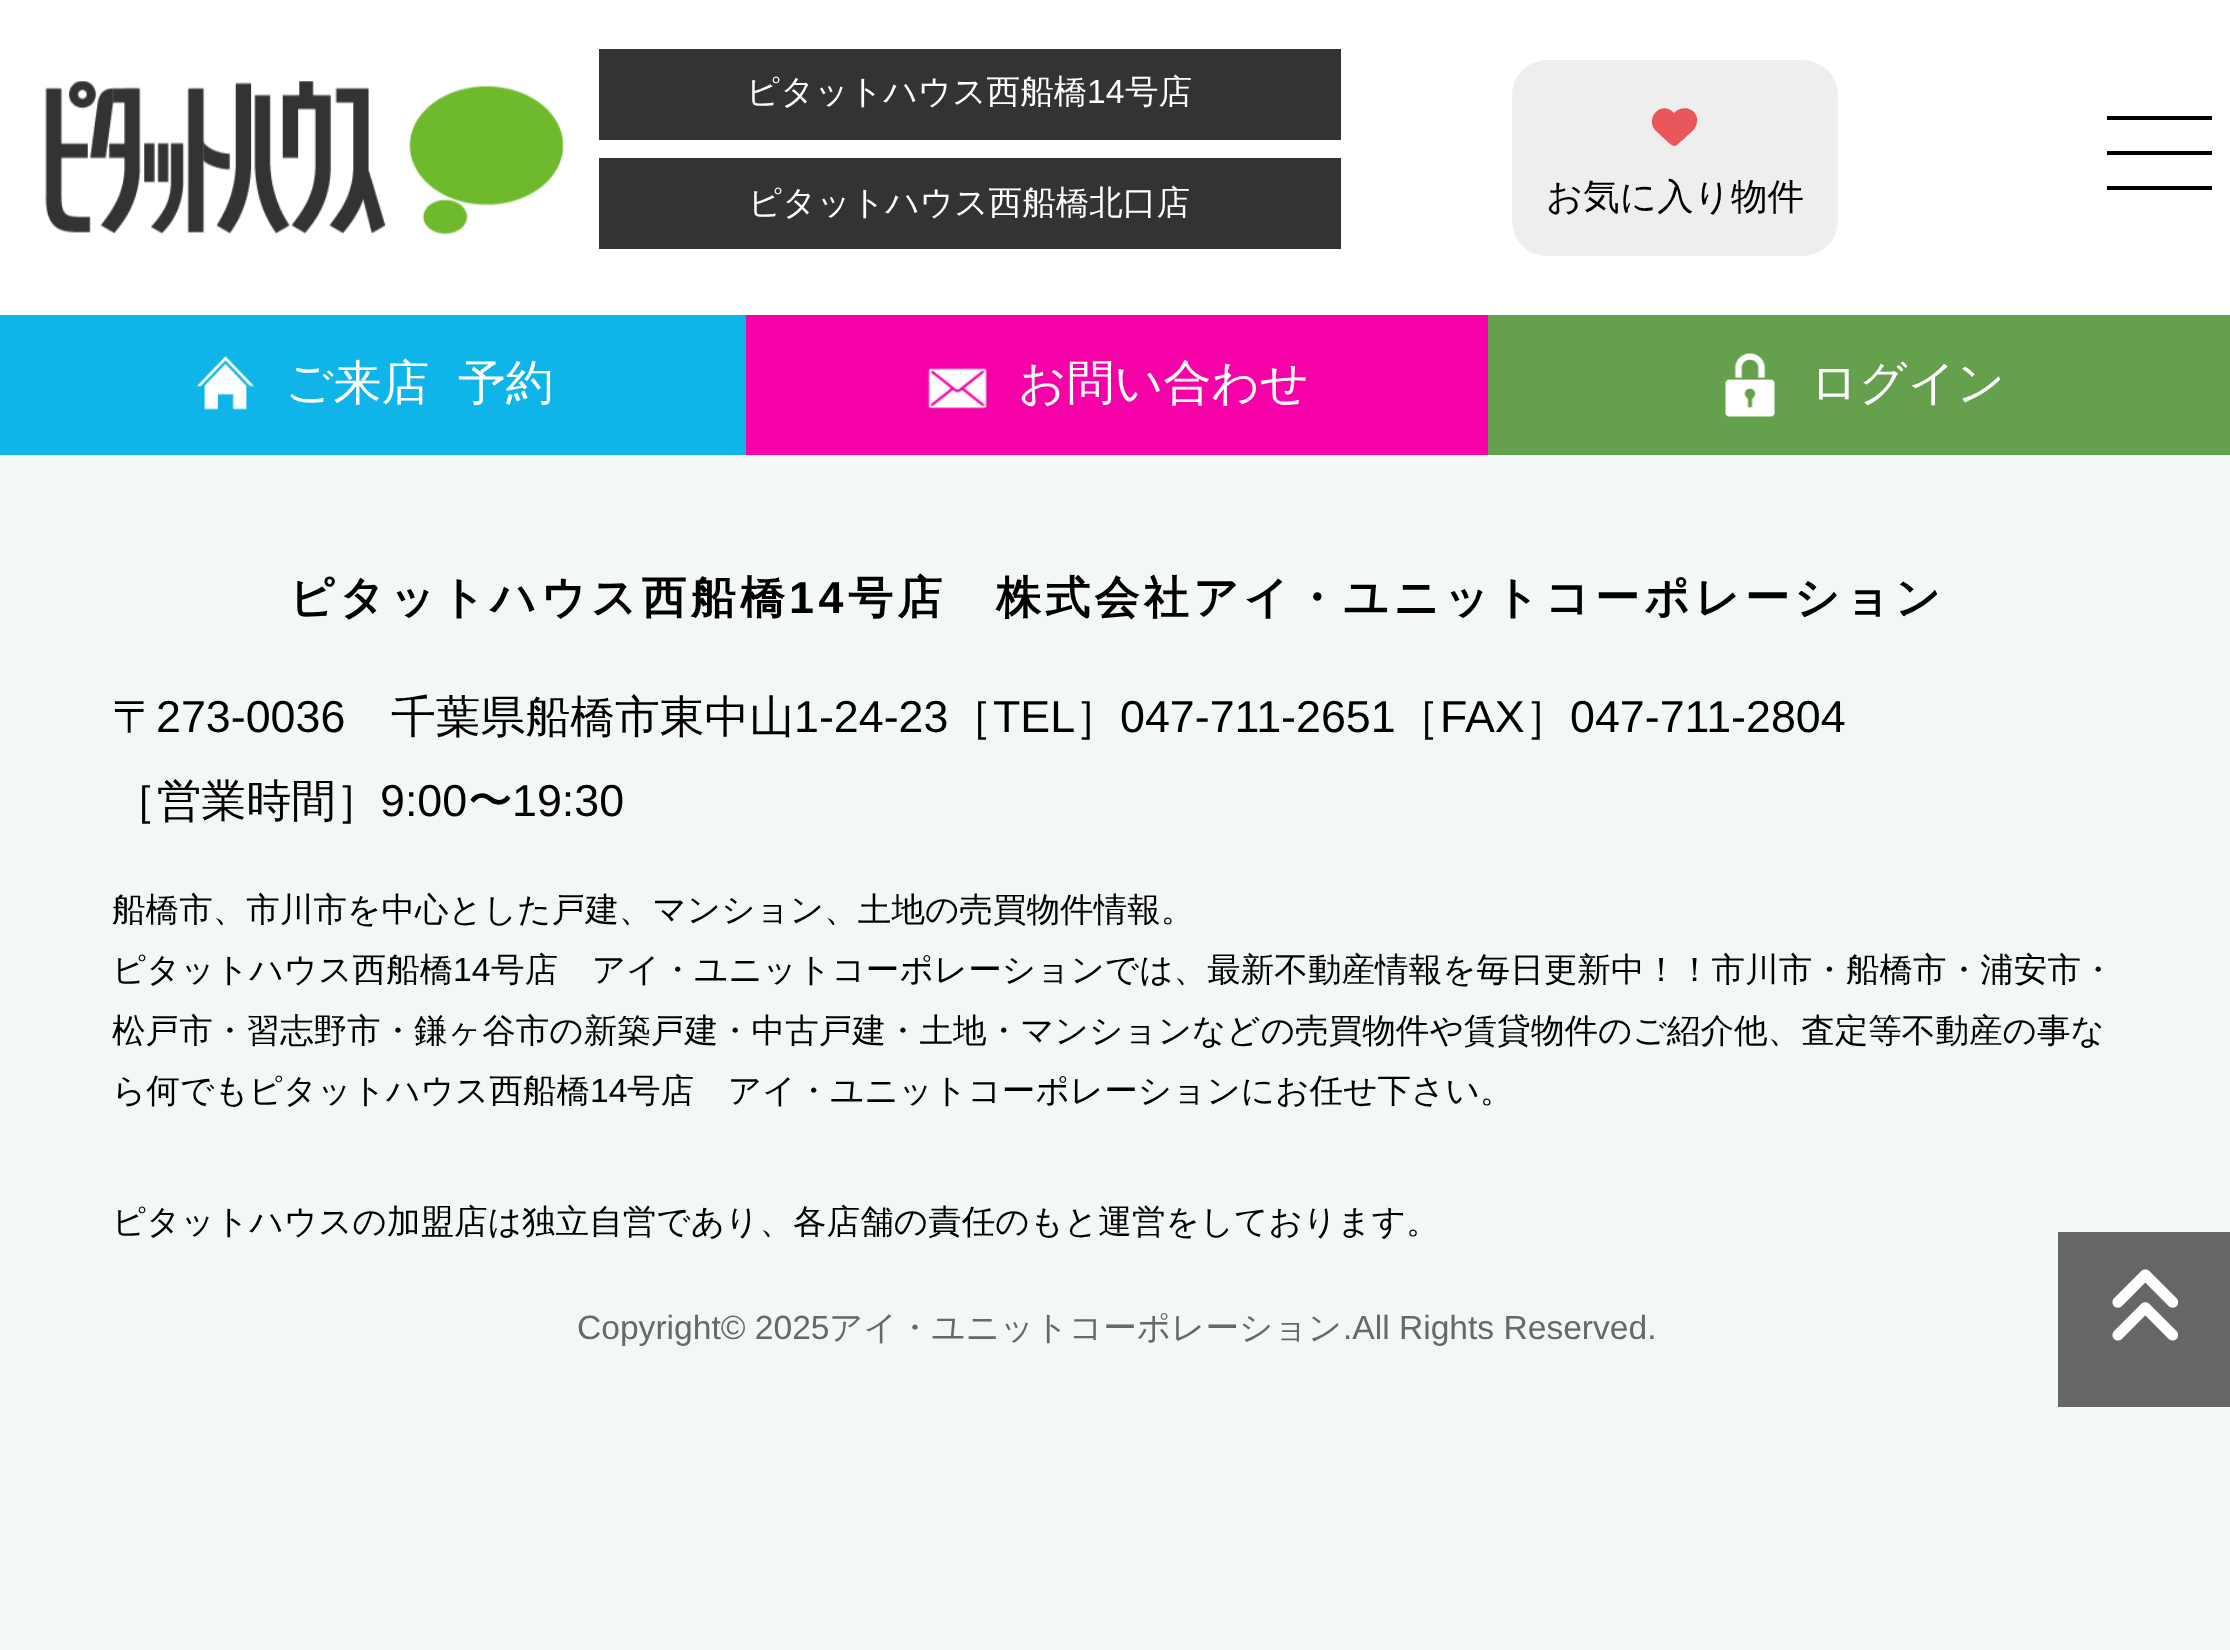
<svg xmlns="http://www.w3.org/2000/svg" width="2230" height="1650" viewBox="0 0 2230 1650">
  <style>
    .t1 { font: 500 33.6px WenQuanYi Zen Hei; fill: #fff; }
    .t2 { font: 33.6px Liberation Sans; fill: #fff; }
    .t3 { font: 500 36.5px WenQuanYi Zen Hei; fill: #000; }
    .t4 { font: 500 47.75px WenQuanYi Zen Hei; fill: #fff; }
    .t5 { font: bold 44.8px WenQuanYi Zen Hei; letter-spacing: 4.5px; fill: #000; }
    .t6 { font: bold 44.8px Liberation Sans; letter-spacing: 4.5px; fill: #000; }
    .t7 { font: 500 44.8px WenQuanYi Zen Hei; fill: #000; }
    .t8 { font: 44.8px Liberation Sans; fill: #000; }
    .t9 { font: 500 33.6px WenQuanYi Zen Hei; fill: #000; }
    .t10 { font: 33.6px Liberation Sans; fill: #000; }
    .t11 { font: 33.6px Liberation Sans; fill: #686868; }
    .t12 { font: 500 33.6px WenQuanYi Zen Hei; fill: #686868; }
  </style>
  <rect width="100%" height="100%" fill="#f3f7f8"/>
  <rect x="0" y="0" width="2230" height="315" fill="#fff"/>
  <image x="45" y="81" width="519" height="154" href="images/1.png"/>
  <rect x="599" y="49" width="742" height="91" fill="#333"/>
  <text x="746" y="103" class="t1">ピタットハウス西船橋</text>
  <text x="1087" y="103" class="t2">14</text>
  <text x="1125" y="103" class="t1">号店</text>
  <rect x="599" y="158" width="742" height="91" fill="#333"/>
  <text x="748" y="214" class="t1">ピタットハウス西船橋北口店</text>
  <rect x="1512" y="60" width="326" height="196" rx="35" fill="#eee"/>
  <path d="M1656 131L1672 145L1656 131L1669 143C1674 147 1675 147 1679 143L1685 138C1688 134 1694 131 1696 126C1702 112 1685 102 1674 113C1661 99 1644 119 1656 131Z" fill="#e9575b"/>
  <text x="1546" y="209" class="t3">お気に入り物件</text>
  <rect x="0" y="315" width="746" height="140" fill="#0fb5e8"/>
  <image x="196" y="356" width="58" height="54" href="images/2.png"/>
  <text x="285" y="399" class="t4">ご来店</text>
  <text x="458" y="399" class="t4">予約</text>
  <rect x="746" y="315" width="742" height="140" fill="#f600a8"/>
  <image x="927" y="368" width="60" height="41" href="images/3.png"/>
  <text x="1018" y="399" class="t4">お問い合わせ</text>
  <rect x="1488" y="315" width="742" height="140" fill="#65a04d"/>
  <image x="1725" y="353" width="50" height="64" href="images/4.png"/>
  <text x="1810" y="399" class="t4">ログイン</text>
  <rect x="2107" y="116" width="105" height="4" fill="#000"/>
  <rect x="2107" y="151" width="105" height="4" fill="#000"/>
  <rect x="2107" y="186" width="105" height="4" fill="#000"/>
  <text x="289" y="613" class="t5">ピタットハウス西船橋</text>
  <text x="789" y="613" class="t6">14</text>
  <text x="848" y="613" class="t5">号店　株式会社アイ・ユニットコーポレーション</text>
  <text x="112" y="732" class="t7">〒</text>
  <text x="156" y="732" class="t8">273-0036</text>
  <text x="391" y="732" class="t7">千葉県船橋市東中山</text>
  <text x="794" y="732" class="t8">1-24-23</text>
  <text x="948" y="732" class="t7">［</text>
  <text x="993" y="732" class="t8">TEL</text>
  <text x="1075" y="732" class="t7">］</text>
  <text x="1120" y="732" class="t8">047-711-2651</text>
  <text x="1395" y="732" class="t7">［</text>
  <text x="1440" y="732" class="t8">FAX</text>
  <text x="1525" y="732" class="t7">］</text>
  <text x="1570" y="732" class="t8">047-711-2804</text>
  <text x="112" y="816" class="t7">［営業時間］</text>
  <text x="380" y="816" class="t8">9:00</text>
  <text x="468" y="816" class="t7">〜</text>
  <text x="512" y="816" class="t8">19:30</text>
  <text x="112" y="921" class="t9">船橋市、市川市を中心とした戸建、マンション、土地の売買物件情報。</text>
  <text x="112" y="981" class="t9">ピタットハウス西船橋</text>
  <text x="453" y="981" class="t10">14</text>
  <text x="491" y="981" class="t9">号店　アイ・ユニットコーポレーションでは、最新不動産情報を毎日更新中！！市川市・船橋市・浦安市・</text>
  <text x="112" y="1042" class="t9">松戸市・習志野市・鎌ヶ谷市の新築戸建・中古戸建・土地・マンションなどの売買物件や賃貸物件のご紹介他、査定等不動産の事な</text>
  <text x="112" y="1102" class="t9">ら何でもピタットハウス西船橋</text>
  <text x="590" y="1102" class="t10">14</text>
  <text x="627" y="1102" class="t9">号店　アイ・ユニットコーポレーションにお任せ下さい。</text>
  <text x="112" y="1233" class="t9">ピタットハウスの加盟店は独立自営であり、各店舗の責任のもと運営をしております。</text>
  <text x="577" y="1339" class="t11">Copyright© 2025</text>
  <text x="829" y="1339" class="t12">アイ・ユニットコーポレーション</text>
  <text x="1343" y="1339" class="t11">.All Rights Reserved.</text>
  <rect x="2058" y="1232" width="172" height="175" fill="#666"/>
  <image x="2112" y="1269" width="67" height="72" href="images/5.png"/>
</svg>
